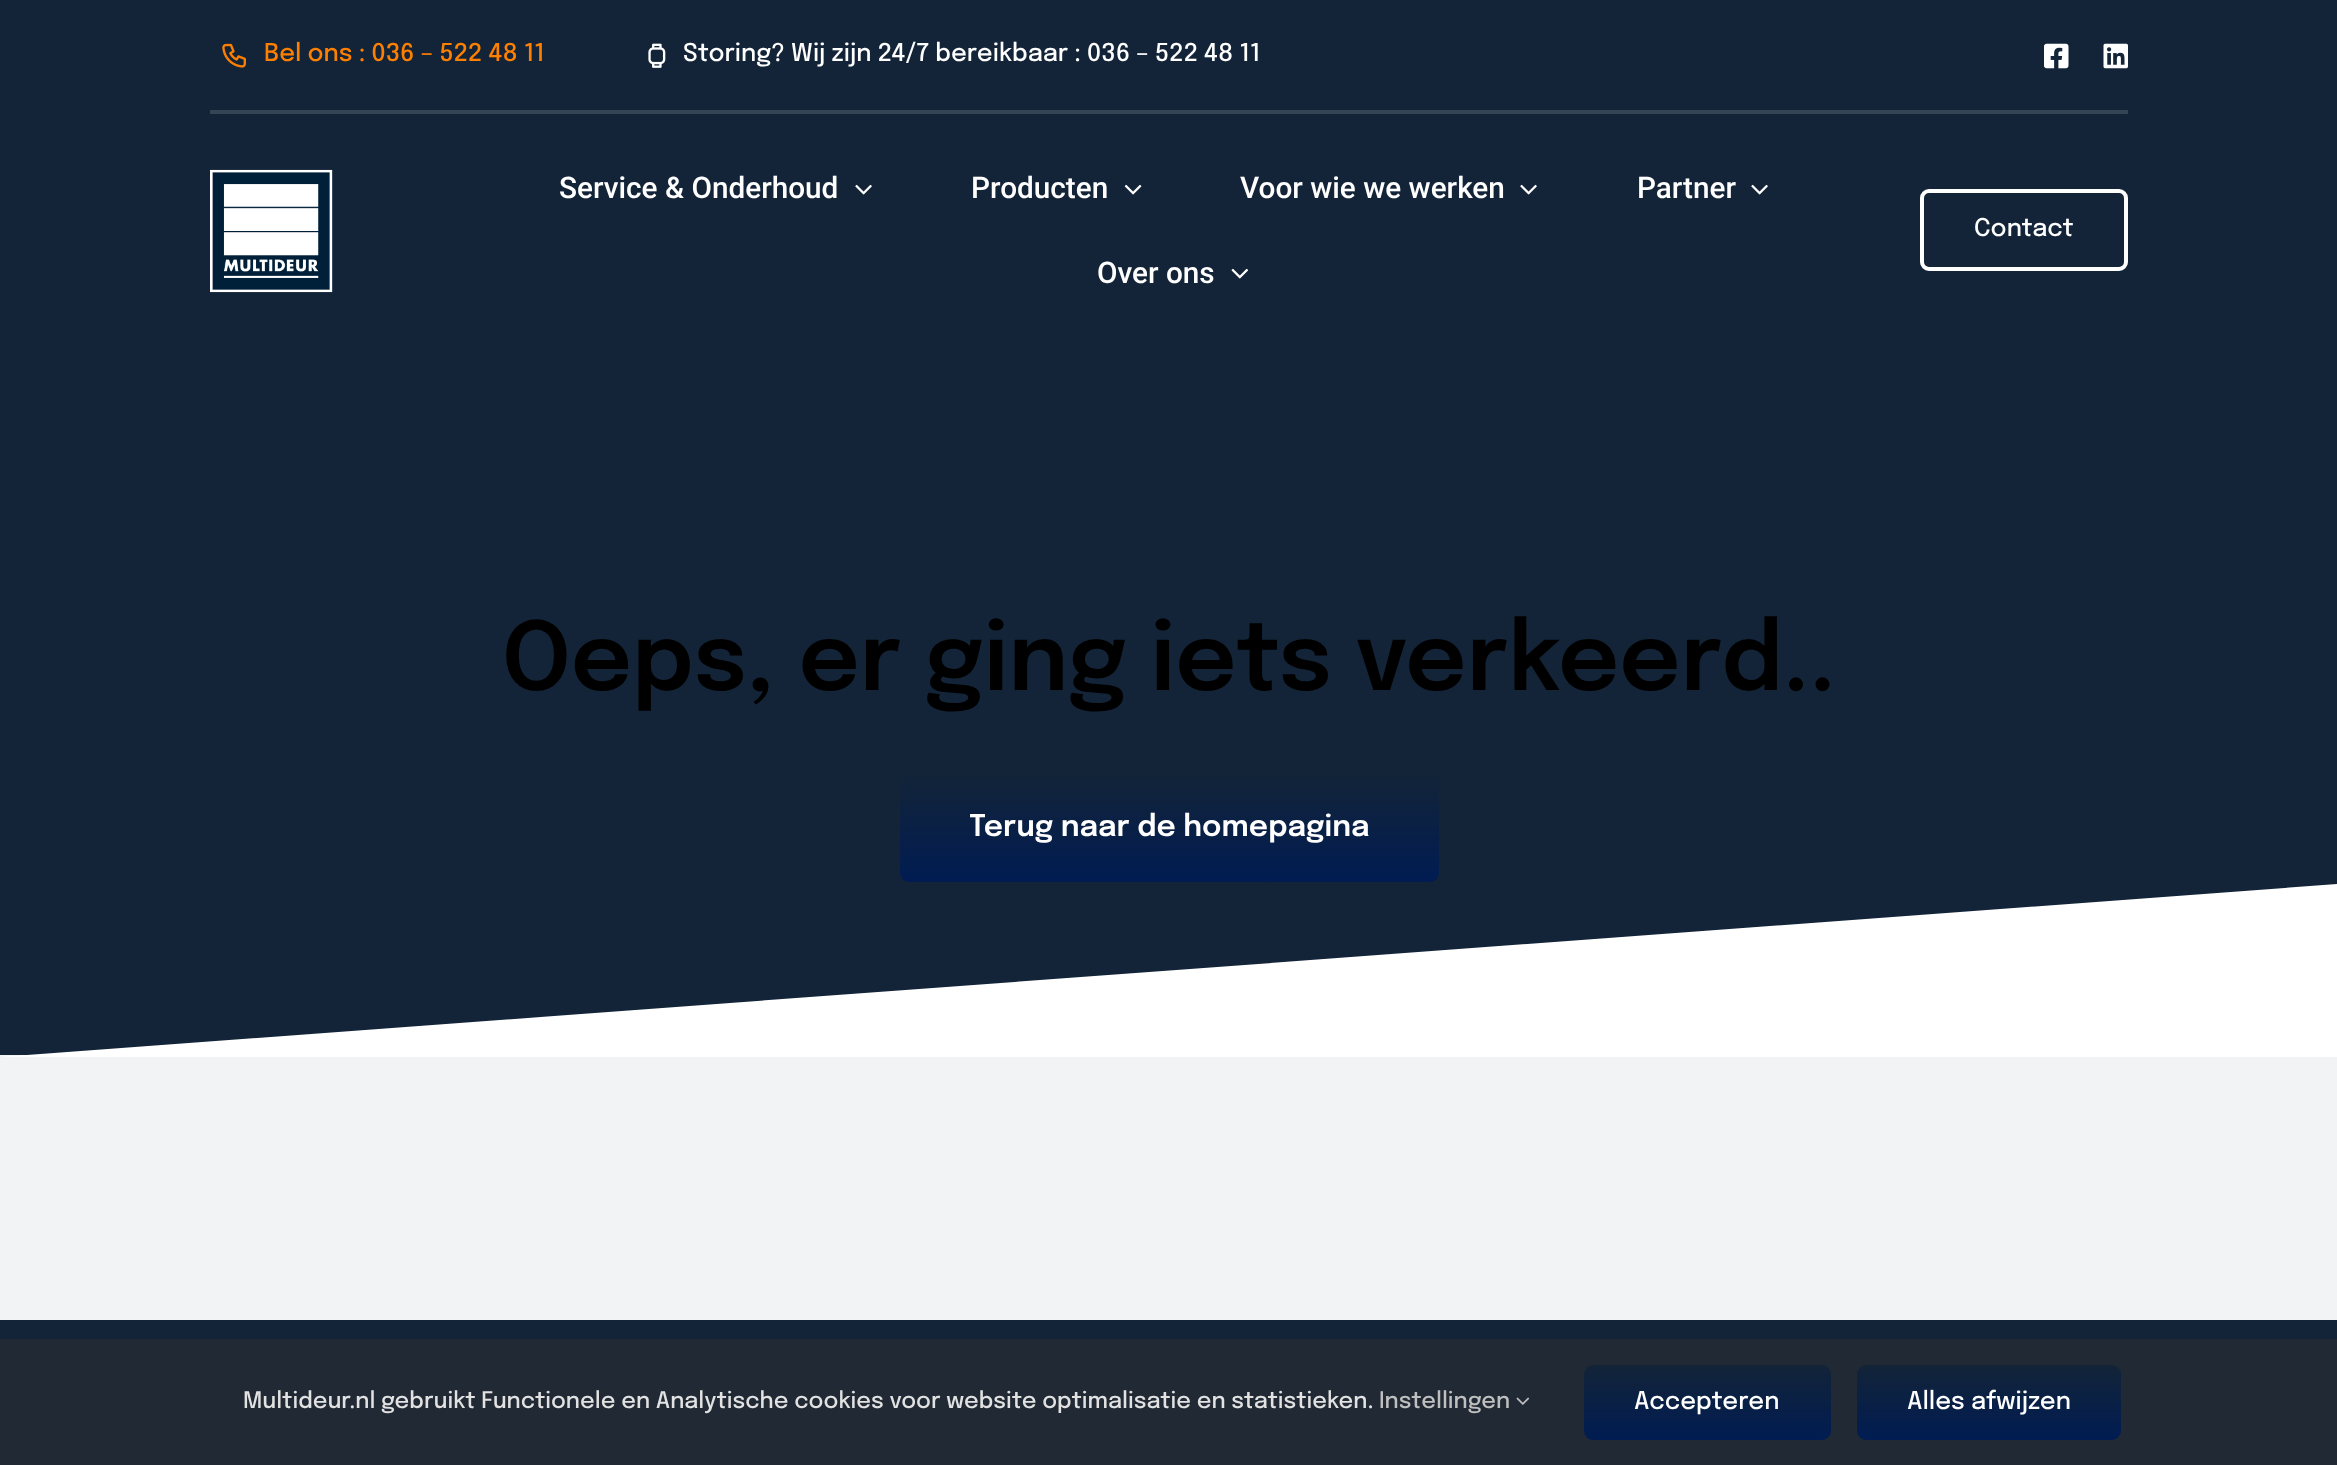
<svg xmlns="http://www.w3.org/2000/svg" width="2337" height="1465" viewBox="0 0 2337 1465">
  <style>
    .t1 { font: 500 24.5px Epilogue; fill: #ff8000; }
    .t2 { font: 500 24.5px Epilogue; fill: #fff; }
    .t3 { font: 500 29.75px Roboto; fill: #fff; }
    .t4 { font: 600 94.5px Epilogue; fill: #000; }
    .t5 { font: 600 29.75px Epilogue; fill: #fff; }
    .t6 { font: 500 22.75px Epilogue; fill: #e2e2e2; }
    .t7 { font: 500 22.75px Epilogue; fill: #bfbfbf; }
  </style>
  <defs>
    <linearGradient id="g1" gradientUnits="userSpaceOnUse" x1="1169" y1="772" x2="1169" y2="882"><stop offset="0" stop-color="#132438"/><stop offset="1" stop-color="#001c52"/></linearGradient>
    <linearGradient id="g2" gradientUnits="userSpaceOnUse" x1="1707" y1="1365" x2="1707" y2="1440"><stop offset="0" stop-color="#132438"/><stop offset="1" stop-color="#001c52"/></linearGradient>
    <linearGradient id="g3" gradientUnits="userSpaceOnUse" x1="1989" y1="1365" x2="1989" y2="1440"><stop offset="0" stop-color="#132438"/><stop offset="1" stop-color="#001c52"/></linearGradient>
  </defs>
  <rect width="100%" height="100%" fill="#f2f3f5"/>
  <rect x="0" y="0" width="2337" height="114" fill="#132438"/>
  <image x="222" y="43" width="24" height="25" href="images/1.png"/>
  <text x="264" y="61" class="t1">Bel ons : 036 – 522 48 11</text>
  <image x="648" y="43" width="18" height="25" href="images/2.png"/>
  <text x="683" y="61" class="t2">Storing? Wij zijn 24/7 bereikbaar : 036 – 522 48 11</text>
  <image x="2044" y="43" width="25" height="26" href="images/3.png"/>
  <image x="2103" y="43" width="25" height="26" href="images/4.png"/>
  <rect x="210" y="110" width="1918" height="4" fill="#364556"/>
  <rect x="0" y="114" width="2337" height="941" fill="#132438"/>
  <path d="M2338 884L0 1057H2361Z" fill="#fff"/>
  <image x="210" y="169" width="123" height="124" href="images/5.png"/>
  <text x="559" y="198" class="t3">Service &amp; Onderhoud</text>
  <image x="855" y="184" width="17" height="11" href="images/6.png"/>
  <text x="971" y="198" class="t3">Producten</text>
  <image x="1124" y="184" width="18" height="11" href="images/7.png"/>
  <text x="1240" y="198" class="t3">Voor wie we werken</text>
  <image x="1520" y="184" width="17" height="11" href="images/6.png"/>
  <text x="1637" y="198" class="t3">Partner</text>
  <image x="1751" y="184" width="17" height="11" href="images/6.png"/>
  <text x="1097" y="283" class="t3">Over ons</text>
  <image x="1231" y="268" width="17" height="11" href="images/8.png"/>
  <rect x="1922" y="191" width="204" height="78" rx="7" fill="none" stroke="#fff" stroke-width="4"/>
  <text x="1974" y="236" class="t2">Contact</text>
  <text x="502" y="690" class="t4">Oeps, er ging iets verkeerd..</text>
  <rect x="900" y="772" width="539" height="110" rx="9" fill="url(#g1)"/>
  <text x="969" y="836" class="t5">Terug naar de homepagina</text>
  <rect x="0" y="1320" width="2337" height="19" fill="#132438"/>
  <rect x="0" y="1339" width="2337" height="126" fill="#212934"/>
  <text x="243" y="1408" class="t6">Multideur.nl gebruikt Functionele en Analytische cookies voor website optimalisatie en statistieken.</text>
  <text x="1379" y="1408" class="t7">Instellingen</text>
  <image x="1516" y="1397" width="14" height="8" href="images/9.png"/>
  <rect x="1584" y="1365" width="247" height="75" rx="9" fill="url(#g2)"/>
  <text x="1634" y="1409" class="t2">Accepteren</text>
  <rect x="1857" y="1365" width="264" height="75" rx="9" fill="url(#g3)"/>
  <text x="1907" y="1409" class="t2">Alles afwijzen</text>
</svg>
